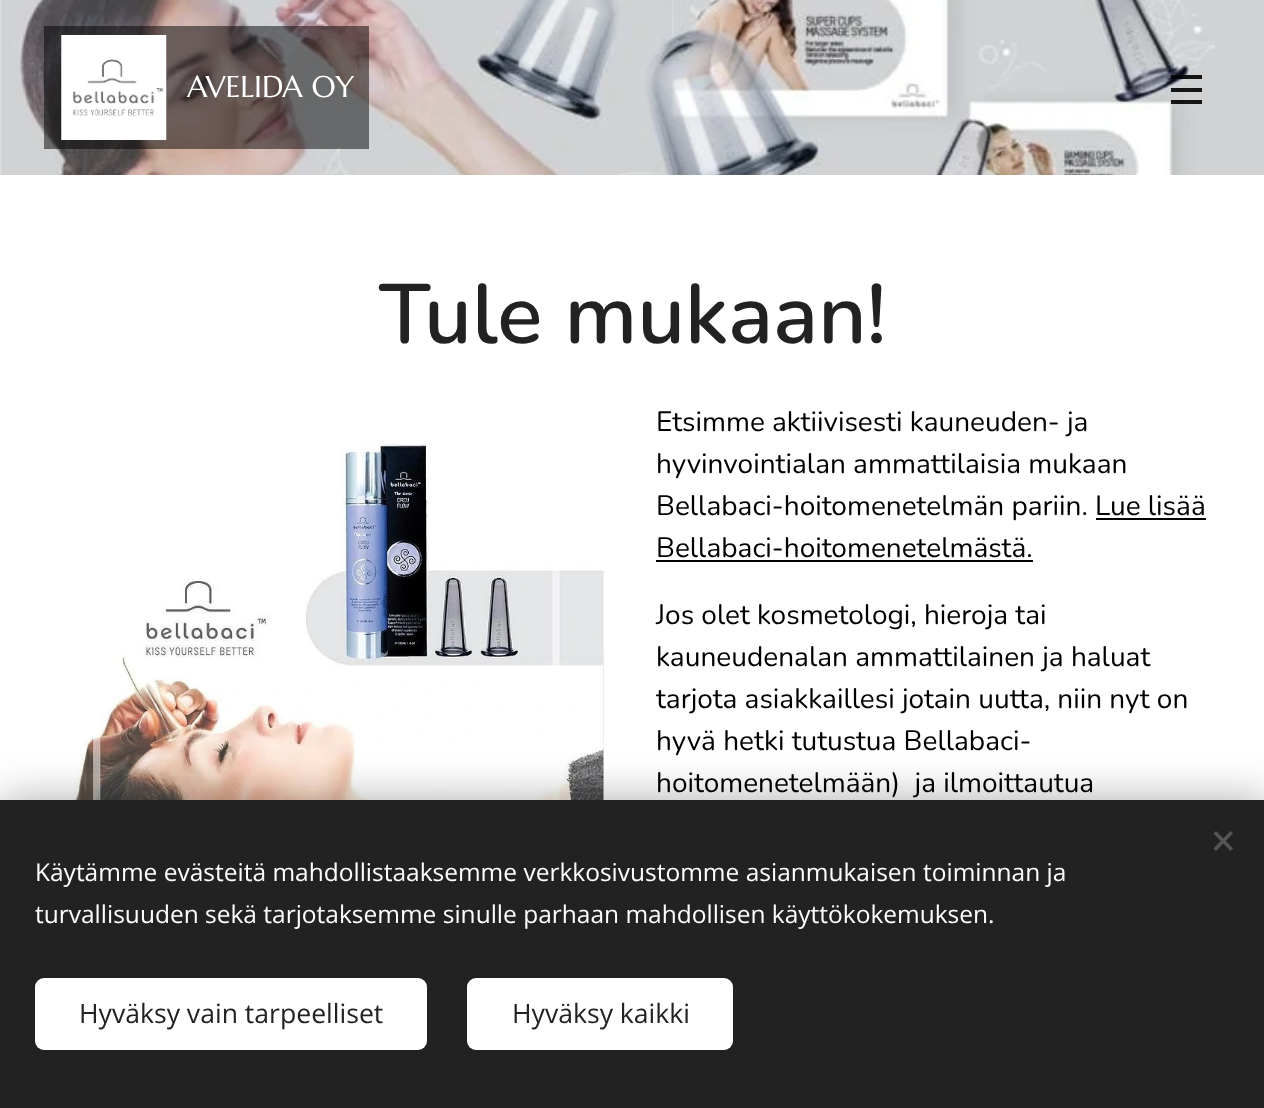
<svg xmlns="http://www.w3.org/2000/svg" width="1264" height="1108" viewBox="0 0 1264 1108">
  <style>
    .t1 { font: 30px Marcellus; fill: #fff; }
    .t2 { font: 600 84px Nunito; fill: #222; }
    .t3 { font: 28px Nunito; fill: #000; }
    .t4 { font: 24.5px Open Sans; fill: #fff; }
    .t5 { font: 26.6px Open Sans; fill: #222; }
  </style>
  <rect width="100%" height="100%" fill="#fff"/>
  <image x="0" y="0" width="1264" height="175" href="images/1.png"/>
  <rect x="44" y="26" width="325" height="123" fill="#00000080"/>
  <image x="61" y="35" width="106" height="105" href="images/2.png"/>
  <text x="187" y="97" class="t1">AVELIDA OY</text>
  <rect x="1171" y="88" width="31" height="4" fill="#000000e6"/>
  <rect x="1171" y="75" width="31" height="4" fill="#000000e6"/>
  <rect x="1171" y="100" width="31" height="4" fill="#000000e6"/>
  <text x="379" y="343" class="t2">Tule mukaan!</text>
  <image x="43" y="444" width="561" height="356" href="images/3.png"/>
  <text x="656" y="431" class="t3">Etsimme aktiivisesti kauneuden- ja</text>
  <text x="656" y="473" class="t3">hyvinvointialan ammattilaisia mukaan</text>
  <text x="656" y="515" class="t3">Bellabaci-hoitomenetelmän pariin. Lue lisää</text>
  <rect x="1096" y="518" width="110" height="2" fill="#000"/>
  <text x="656" y="557" class="t3">Bellabaci-hoitomenetelmästä.</text>
  <rect x="656" y="560" width="377" height="2" fill="#000"/>
  <text x="656" y="624" class="t3">Jos olet kosmetologi, hieroja tai</text>
  <text x="656" y="666" class="t3">kauneudenalan ammattilainen ja haluat</text>
  <text x="656" y="708" class="t3">tarjota asiakkaillesi jotain uutta, niin nyt on</text>
  <text x="656" y="750" class="t3">hyvä hetki tutustua Bellabaci-</text>
  <text x="656" y="792" class="t3" xml:space="preserve">hoitomenetelmään)  ja ilmoittautua</text>
  <rect x="0" y="800" width="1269" height="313" fill="#00000054" filter="blur(22px)"/>
  <rect x="0" y="800" width="1264" height="308" fill="#222"/>
  <path d="M1213.5 848.5L1230.5 831L1233 833.5L1216 851Z" fill="#555"/>
  <path d="M1216 831L1233 848.5L1230.5 851L1213.5 833.5Z" fill="#555"/>
  <text x="35" y="881" class="t4">Käytämme evästeitä mahdollistaaksemme verkkosivustomme asianmukaisen toiminnan ja</text>
  <text x="35" y="923" class="t4">turvallisuuden sekä tarjotaksemme sinulle parhaan mahdollisen käyttökokemuksen.</text>
  <rect x="35" y="978" width="392" height="72" rx="9" fill="#fff"/>
  <text x="79" y="1023" class="t5">Hyväksy vain tarpeelliset</text>
  <rect x="467" y="978" width="266" height="72" rx="9" fill="#fff"/>
  <text x="512" y="1023" class="t5">Hyväksy kaikki</text>
</svg>
